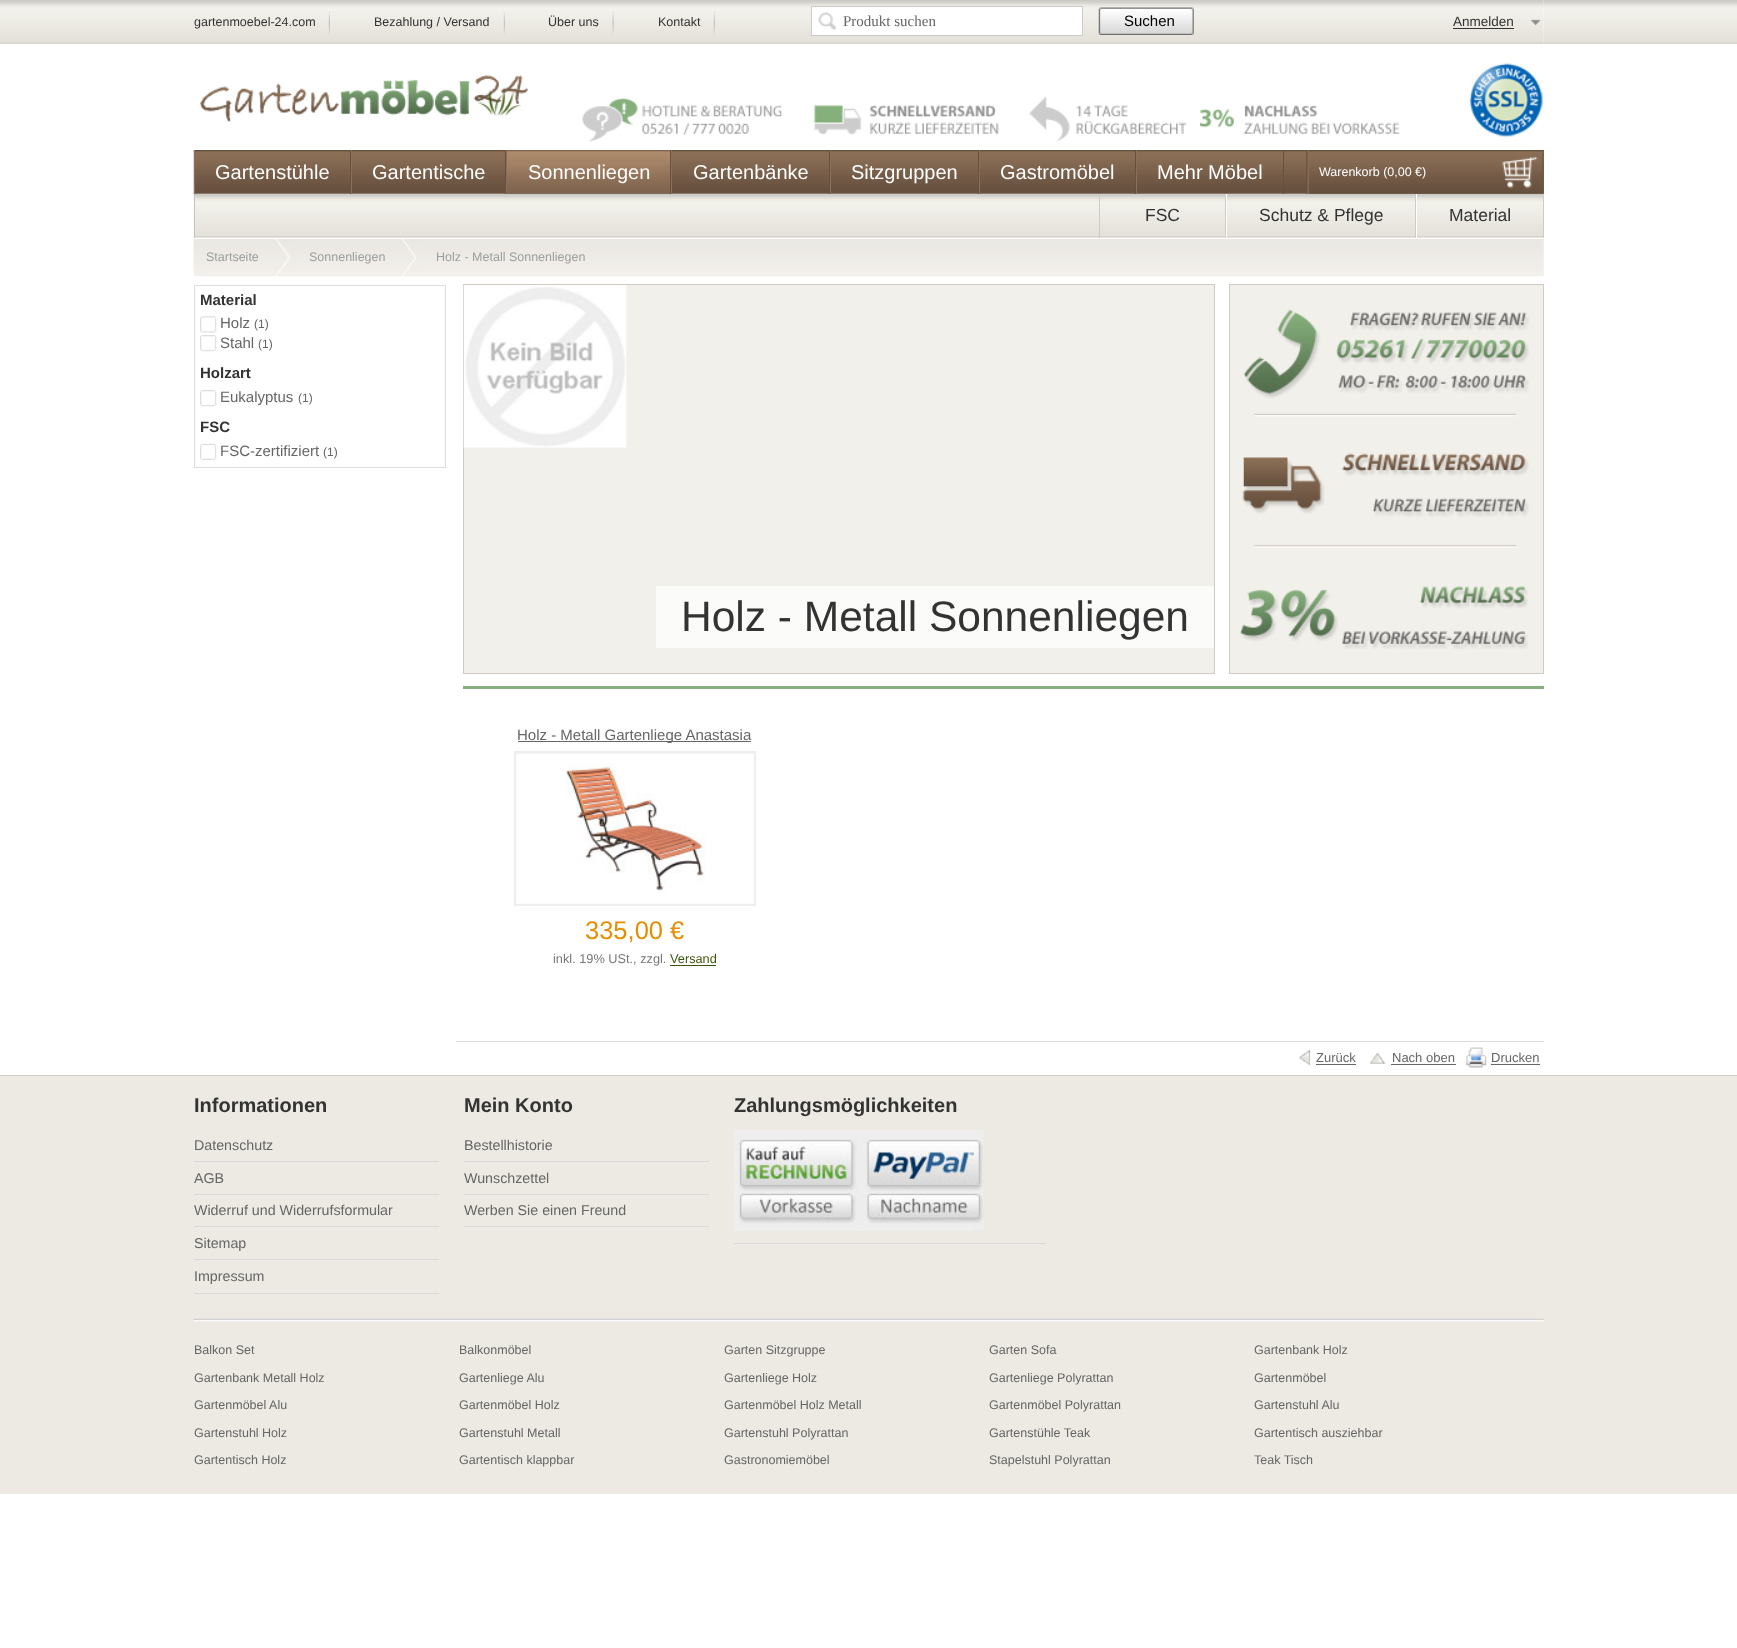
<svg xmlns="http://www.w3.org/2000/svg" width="1737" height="1648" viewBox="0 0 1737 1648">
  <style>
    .t1 { font: 12.5px Liberation Sans; fill: #333; }
    .t2 { font: 12.5px Liberation Sans; fill: #fff; }
    .t3 { font: 13.5px Liberation Sans; fill: #333; }
    .t4 { font: 20px Liberation Sans; fill: #fff; }
    .t5 { font: 17.5px Liberation Sans; fill: #333; }
    .t6 { font: 15px Liberation Serif; fill: #666; }
    .t7 { font: 15px Liberation Sans; fill: #000; }
    .t8 { font: 12.5px Liberation Sans; fill: #9c9e9f; }
    .t9 { font: 42.5px Liberation Sans; fill: #333; }
    .t10 { font: 15px Liberation Sans; fill: #666; }
    .t11 { font: 25.5px Liberation Sans; fill: #e58e02; }
    .t12 { font: 12.75px Liberation Sans; fill: #777; }
    .t13 { font: 12.75px Liberation Sans; fill: #3a560a; }
    .t14 { font: 13px Liberation Sans; fill: #666; }
    .t15 { font: bold 15px Liberation Sans; fill: #333; }
    .t16 { font: 12px Liberation Sans; fill: #666; }
    .t17 { font: bold 20px Liberation Sans; fill: #333; }
    .t18 { font: 14.25px Liberation Sans; fill: #666; }
    .t19 { font: 12.5px Liberation Sans; fill: #666; }
  </style>
  <rect width="100%" height="100%" fill="#fff"/>
  <image x="0" y="0" width="1737" height="44" href="images/1.png"/>
  <image x="193" y="238" width="1351" height="39" href="images/19.png"/>
  <image x="193" y="238" width="78" height="31" href="images/20.png"/>
  <rect x="194" y="0" width="1350" height="239" fill="#fff"/>
  <image x="194" y="0" width="1350" height="44" href="images/2.png"/>
  <image x="328" y="11" width="2" height="24" href="images/3.png"/>
  <text x="194" y="26" class="t1">gartenmoebel-24.com</text>
  <image x="503" y="11" width="2" height="24" href="images/3.png"/>
  <text x="374" y="26" class="t1">Bezahlung / Versand</text>
  <image x="612" y="11" width="2" height="23" href="images/4.png"/>
  <text x="548" y="26" class="t1">Über uns</text>
  <image x="713" y="11" width="2" height="24" href="images/3.png"/>
  <text x="658" y="26" class="t1">Kontakt</text>
  <image x="193" y="193" width="1351" height="45" href="images/16.png"/>
  <image x="193" y="150" width="1351" height="44" href="images/14.png"/>
  <image x="1500" y="150" width="44" height="44" href="images/5.png"/>
  <image x="1306" y="150" width="194" height="44" href="images/6.png"/>
  <text x="1319" y="176" class="t2">Warenkorb (0,00 €)</text>
  <image x="1531" y="19" width="10" height="7" href="images/7.png"/>
  <text x="1453" y="26" class="t3">Anmelden</text>
  <rect x="1453" y="28" width="61" height="1" fill="#333"/>
  <image x="199" y="74" width="330" height="48" href="images/8.png"/>
  <image x="582" y="98" width="200" height="44" href="images/9.png"/>
  <image x="813" y="104" width="186" height="31" href="images/10.png"/>
  <image x="1029" y="96" width="158" height="46" href="images/11.png"/>
  <image x="1200" y="105" width="200" height="29" href="images/12.png"/>
  <image x="1469" y="63" width="74" height="74" href="images/13.png"/>
  <rect x="350" y="150" width="1" height="44" fill="#66503f"/>
  <rect x="194" y="150" width="1" height="44" fill="#8c6f56"/>
  <text x="215" y="179" class="t4">Gartenstühle</text>
  <rect x="505" y="150" width="1" height="44" fill="#66503f"/>
  <rect x="351" y="150" width="1" height="44" fill="#8c6f56"/>
  <text x="372" y="179" class="t4">Gartentische</text>
  <image x="507" y="150" width="163" height="44" href="images/15.png"/>
  <rect x="670" y="150" width="1" height="44" fill="#66503f"/>
  <rect x="506" y="150" width="1" height="44" fill="#8c6f56"/>
  <text x="528" y="179" class="t4">Sonnenliegen</text>
  <rect x="829" y="150" width="1" height="44" fill="#66503f"/>
  <rect x="671" y="150" width="1" height="44" fill="#8c6f56"/>
  <text x="693" y="179" class="t4">Gartenbänke</text>
  <rect x="978" y="150" width="1" height="44" fill="#66503f"/>
  <rect x="830" y="150" width="1" height="44" fill="#8c6f56"/>
  <text x="851" y="179" class="t4">Sitzgruppen</text>
  <rect x="1135" y="150" width="1" height="44" fill="#66503f"/>
  <rect x="979" y="150" width="1" height="44" fill="#8c6f56"/>
  <text x="1000" y="179" class="t4">Gastromöbel</text>
  <rect x="1283" y="150" width="1" height="44" fill="#66503f"/>
  <rect x="1136" y="150" width="1" height="44" fill="#8c6f56"/>
  <text x="1157" y="179" class="t4">Mehr Möbel</text>
  <rect x="194" y="194" width="1" height="44" fill="#c5c5c5"/>
  <rect x="1225" y="194" width="1" height="44" fill="#d1cbc3"/>
  <rect x="1099" y="194" width="1" height="44" fill="#d1cbc3"/>
  <text x="1145" y="221" class="t5">FSC</text>
  <rect x="1415" y="194" width="1" height="44" fill="#d1cbc3"/>
  <rect x="1226" y="194" width="1" height="44" fill="#fff"/>
  <text x="1259" y="221" class="t5">Schutz &amp; Pflege</text>
  <rect x="1543" y="194" width="1" height="44" fill="#d1cbc3"/>
  <rect x="1416" y="194" width="1" height="44" fill="#fff"/>
  <text x="1449" y="221" class="t5">Material</text>
  <rect x="812" y="7" width="270" height="28" fill="#fff"/>
  <image x="818" y="12" width="19" height="18" href="images/17.png"/>
  <rect x="811.5" y="6.5" width="271" height="29" fill="none" stroke="#ccc"/>
  <text x="843" y="26" class="t6">Produkt suchen</text>
  <image x="1098" y="7" width="96" height="28" href="images/18.png"/>
  <text x="1124" y="26" class="t7">Suchen</text>
  <text x="206" y="261" class="t8">Startseite</text>
  <image x="272" y="239" width="24" height="37" href="images/21.png"/>
  <text x="309" y="261" class="t8">Sonnenliegen</text>
  <image x="398" y="239" width="24" height="37" href="images/22.png"/>
  <text x="436" y="261" class="t8">Holz - Metall Sonnenliegen</text>
  <rect x="463.5" y="284.5" width="751" height="389" fill="#f2f0eb" stroke="#d1cbc3"/>
  <image x="463" y="285" width="164" height="163" href="images/23.png"/>
  <rect x="656" y="586" width="558" height="62" fill="#fbfbf9"/>
  <text x="681" y="631" class="t9">Holz - Metall Sonnenliegen</text>
  <rect x="1229.5" y="284.5" width="314" height="389" fill="#f2f0eb" stroke="#d1cbc3"/>
  <image x="1243" y="309" width="286" height="108" href="images/24.png"/>
  <image x="1242" y="453" width="287" height="95" href="images/25.png"/>
  <image x="1240" y="586" width="288" height="63" href="images/26.png"/>
  <rect x="463" y="686" width="1081" height="3" fill="#85af7b"/>
  <rect x="518" y="741" width="233" height="1" fill="#666"/>
  <text x="517" y="740" class="t10">Holz - Metall Gartenliege Anastasia</text>
  <rect x="515.5" y="752.5" width="239" height="152" fill="none" stroke="#eee" stroke-width="3"/>
  <image x="516" y="753" width="238" height="151" href="images/27.png"/>
  <text x="585" y="939" class="t11">335,00 €</text>
  <text x="553" y="963" class="t12">inkl. 19% USt., zzgl.</text>
  <text x="670" y="963" class="t13">Versand</text>
  <rect x="670" y="965" width="46" height="1" fill="#3a560a"/>
  <rect x="456" y="1041" width="1088" height="1" fill="#ddd"/>
  <image x="1298" y="1050" width="13" height="16" href="images/28.png"/>
  <text x="1316" y="1062" class="t14">Zurück</text>
  <rect x="1316" y="1064" width="40" height="1" fill="#666"/>
  <image x="1370" y="1052" width="16" height="12" href="images/29.png"/>
  <text x="1392" y="1062" class="t14">Nach oben</text>
  <rect x="1391" y="1064" width="65" height="1" fill="#666"/>
  <image x="1466" y="1047" width="21" height="21" href="images/30.png"/>
  <text x="1491" y="1062" class="t14">Drucken</text>
  <rect x="1491" y="1064" width="49" height="1" fill="#666"/>
  <rect x="194.5" y="285.5" width="251" height="182" fill="none" stroke="#ddd"/>
  <text x="200" y="305" class="t15">Material</text>
  <image x="200" y="316" width="17" height="17" href="images/31.png"/>
  <text x="220" y="328" class="t10">Holz</text>
  <text x="254" y="328" class="t16">(1)</text>
  <image x="200" y="335" width="17" height="17" href="images/32.png"/>
  <text x="220" y="348" class="t10">Stahl</text>
  <text x="258" y="348" class="t16">(1)</text>
  <text x="200" y="378" class="t15">Holzart</text>
  <image x="200" y="390" width="17" height="17" href="images/32.png"/>
  <text x="220" y="402" class="t10">Eukalyptus</text>
  <text x="298" y="402" class="t16">(1)</text>
  <text x="200" y="432" class="t15">FSC</text>
  <image x="200" y="443" width="17" height="17" href="images/33.png"/>
  <text x="220" y="456" class="t10">FSC-zertifiziert</text>
  <text x="323" y="456" class="t16">(1)</text>
  <rect x="0" y="1076" width="1737" height="418" fill="#eceae3"/>
  <rect x="0" y="1075" width="1737" height="1" fill="#d1cbc3"/>
  <text x="194" y="1112" class="t17">Informationen</text>
  <rect x="194" y="1161" width="245" height="1" fill="#d9dadb"/>
  <text x="194" y="1150" class="t18">Datenschutz</text>
  <rect x="194" y="1194" width="245" height="1" fill="#d9dadb"/>
  <text x="194" y="1183" class="t18">AGB</text>
  <rect x="194" y="1226" width="245" height="1" fill="#d9dadb"/>
  <text x="194" y="1215" class="t18">Widerruf und Widerrufsformular</text>
  <rect x="194" y="1259" width="245" height="1" fill="#d9dadb"/>
  <text x="194" y="1248" class="t18">Sitemap</text>
  <rect x="194" y="1293" width="245" height="1" fill="#d9dadb"/>
  <text x="194" y="1281" class="t18">Impressum</text>
  <text x="464" y="1112" class="t17">Mein Konto</text>
  <rect x="464" y="1161" width="245" height="1" fill="#d9dadb"/>
  <text x="464" y="1150" class="t18">Bestellhistorie</text>
  <rect x="464" y="1194" width="245" height="1" fill="#d9dadb"/>
  <text x="464" y="1183" class="t18">Wunschzettel</text>
  <rect x="464" y="1226" width="245" height="1" fill="#d9dadb"/>
  <text x="464" y="1215" class="t18">Werben Sie einen Freund</text>
  <text x="734" y="1112" class="t17">Zahlungsmöglichkeiten</text>
  <rect x="734" y="1243" width="312" height="1" fill="#d9dadb"/>
  <image x="734" y="1130" width="250" height="101" href="images/34.png"/>
  <image x="193" y="1318" width="1351" height="4" href="images/35.png"/>
  <text x="194" y="1354" class="t19">Balkon Set</text>
  <text x="459" y="1354" class="t19">Balkonmöbel</text>
  <text x="724" y="1354" class="t19">Garten Sitzgruppe</text>
  <text x="989" y="1354" class="t19">Garten Sofa</text>
  <text x="1254" y="1354" class="t19">Gartenbank Holz</text>
  <text x="194" y="1382" class="t19">Gartenbank Metall Holz</text>
  <text x="459" y="1382" class="t19">Gartenliege Alu</text>
  <text x="724" y="1382" class="t19">Gartenliege Holz</text>
  <text x="989" y="1382" class="t19">Gartenliege Polyrattan</text>
  <text x="1254" y="1382" class="t19">Gartenmöbel</text>
  <text x="194" y="1409" class="t19">Gartenmöbel Alu</text>
  <text x="459" y="1409" class="t19">Gartenmöbel Holz</text>
  <text x="724" y="1409" class="t19">Gartenmöbel Holz Metall</text>
  <text x="989" y="1409" class="t19">Gartenmöbel Polyrattan</text>
  <text x="1254" y="1409" class="t19">Gartenstuhl Alu</text>
  <text x="194" y="1437" class="t19">Gartenstuhl Holz</text>
  <text x="459" y="1437" class="t19">Gartenstuhl Metall</text>
  <text x="724" y="1437" class="t19">Gartenstuhl Polyrattan</text>
  <text x="989" y="1437" class="t19">Gartenstühle Teak</text>
  <text x="1254" y="1437" class="t19">Gartentisch ausziehbar</text>
  <text x="194" y="1464" class="t19">Gartentisch Holz</text>
  <text x="459" y="1464" class="t19">Gartentisch klappbar</text>
  <text x="724" y="1464" class="t19">Gastronomiemöbel</text>
  <text x="989" y="1464" class="t19">Stapelstuhl Polyrattan</text>
  <text x="1254" y="1464" class="t19">Teak Tisch</text>
</svg>
